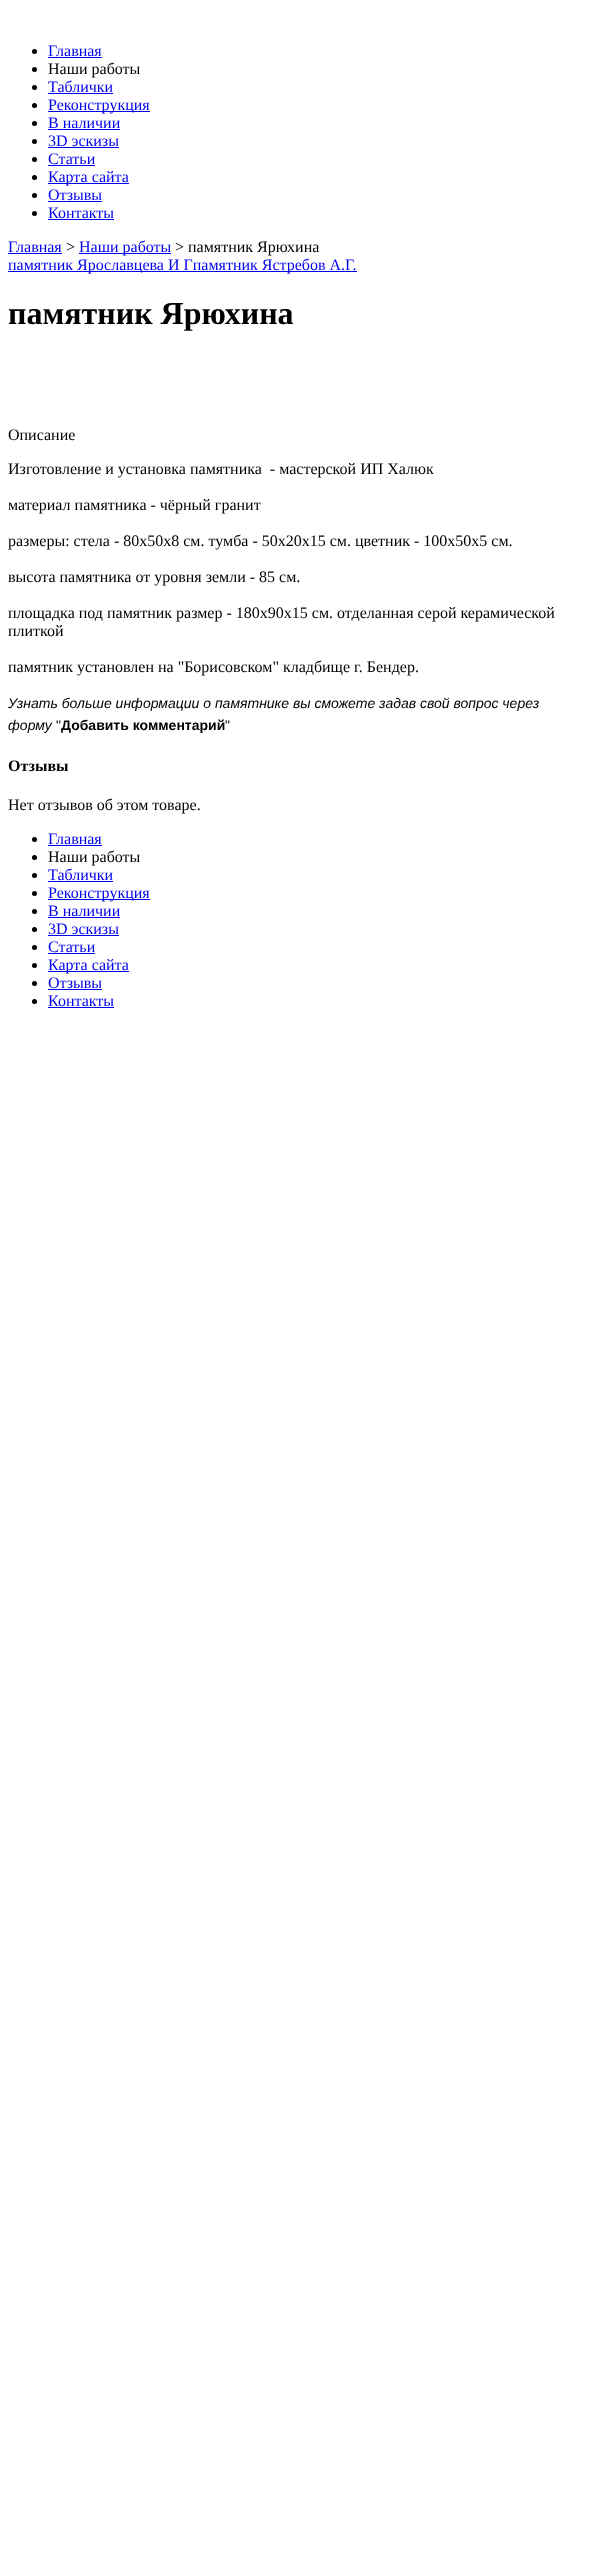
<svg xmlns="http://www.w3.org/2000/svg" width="592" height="2564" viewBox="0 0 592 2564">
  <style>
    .t1 { font: 16px Liberation Serif; fill: #00e; }
    .t2 { font: 16px Liberation Serif; fill: #000; }
    .t3 { font: bold 32px Liberation Serif; fill: #000; }
    .t4 { font: italic 14px Liberation Sans; fill: #000; }
    .t5 { font: 14px Liberation Sans; fill: #000; }
    .t6 { font: bold 14px Liberation Sans; fill: #000; }
    .t7 { font: bold 16px Liberation Serif; fill: #000; }
  </style>
  <rect width="100%" height="100%" fill="#fff"/>
  <circle cx="34.5" cy="51.5" r="2.5" fill="#000"/>
  <text x="48" y="56" class="t1">Главная</text>
  <rect x="48" y="57" width="54" height="1" fill="#00e"/>
  <circle cx="34.5" cy="69.5" r="2.5" fill="#000"/>
  <text x="48" y="74" class="t2">Наши работы</text>
  <circle cx="34.5" cy="87.5" r="2.5" fill="#000"/>
  <text x="48" y="92" class="t1">Таблички</text>
  <rect x="48" y="93" width="65" height="1" fill="#00e"/>
  <circle cx="34.5" cy="105.5" r="2.5" fill="#000"/>
  <rect x="48" y="111" width="102" height="1" fill="#00e"/>
  <text x="48" y="110" class="t1">Реконструкция</text>
  <circle cx="34.5" cy="123.5" r="2.5" fill="#000"/>
  <text x="48" y="128" class="t1">В наличии</text>
  <rect x="48" y="129" width="72" height="1" fill="#00e"/>
  <circle cx="34.5" cy="141.5" r="2.5" fill="#000"/>
  <text x="48" y="146" class="t1">3D эскизы</text>
  <rect x="48" y="147" width="71" height="1" fill="#00e"/>
  <circle cx="34.5" cy="159.5" r="2.5" fill="#000"/>
  <text x="48" y="164" class="t1">Статьи</text>
  <rect x="48" y="165" width="47" height="1" fill="#00e"/>
  <circle cx="34.5" cy="177.5" r="2.5" fill="#000"/>
  <rect x="48" y="183" width="81" height="1" fill="#00e"/>
  <text x="48" y="182" class="t1">Карта сайта</text>
  <circle cx="34.5" cy="195.5" r="2.5" fill="#000"/>
  <text x="48" y="200" class="t1">Отзывы</text>
  <rect x="48" y="201" width="54" height="1" fill="#00e"/>
  <circle cx="34.5" cy="213.5" r="2.5" fill="#000"/>
  <text x="48" y="218" class="t1">Контакты</text>
  <rect x="48" y="219" width="66" height="1" fill="#00e"/>
  <text x="8" y="252" class="t1">Главная</text>
  <rect x="8" y="253" width="54" height="1" fill="#00e"/>
  <text x="66" y="252" class="t2">&gt;</text>
  <rect x="79" y="253" width="92" height="1" fill="#00e"/>
  <text x="79" y="252" class="t1">Наши работы</text>
  <text x="175" y="252" class="t2">&gt; памятник Ярюхина</text>
  <rect x="8" y="271" width="349" height="1" fill="#00e"/>
  <text x="8" y="270" class="t1">памятник Ярославцева И Гпамятник Ястребов А.Г.</text>
  <text x="8" y="324" class="t3">памятник Ярюхина</text>
  <text x="8" y="440" class="t2">Описание</text>
  <text x="8" y="474" class="t2" xml:space="preserve">Изготовление и установка памятника  - мастерской ИП Халюк</text>
  <text x="8" y="510" class="t2">материал памятника - чёрный гранит</text>
  <text x="8" y="546" class="t2">размеры: стела - 80х50х8 см. тумба - 50х20х15 см. цветник - 100х50х5 см.</text>
  <text x="8" y="582" class="t2">высота памятника от уровня земли - 85 см.</text>
  <text x="8" y="618" class="t2">площадка под памятник размер - 180х90х15 см. отделанная серой керамической</text>
  <text x="8" y="636" class="t2">плиткой</text>
  <text x="8" y="672" class="t2">памятник установлен на "Борисовском" кладбище г. Бендер.</text>
  <text x="8" y="708" class="t4">Узнать больше информации о памятнике вы сможете задав свой вопрос через</text>
  <text x="8" y="730" class="t4">форму</text>
  <text x="56" y="730" class="t5">"</text>
  <text x="61" y="730" class="t6">Добавить комментарий</text>
  <text x="225" y="730" class="t5">"</text>
  <text x="8" y="771" class="t7">Отзывы</text>
  <text x="8" y="810" class="t2">Нет отзывов об этом товаре.</text>
  <circle cx="34.5" cy="839.5" r="2.5" fill="#000"/>
  <text x="48" y="844" class="t1">Главная</text>
  <rect x="48" y="845" width="54" height="1" fill="#00e"/>
  <circle cx="34.5" cy="857.5" r="2.5" fill="#000"/>
  <text x="48" y="862" class="t2">Наши работы</text>
  <circle cx="34.5" cy="875.5" r="2.5" fill="#000"/>
  <text x="48" y="880" class="t1">Таблички</text>
  <rect x="48" y="881" width="65" height="1" fill="#00e"/>
  <circle cx="34.5" cy="893.5" r="2.5" fill="#000"/>
  <rect x="48" y="899" width="102" height="1" fill="#00e"/>
  <text x="48" y="898" class="t1">Реконструкция</text>
  <circle cx="34.5" cy="911.5" r="2.5" fill="#000"/>
  <text x="48" y="916" class="t1">В наличии</text>
  <rect x="48" y="917" width="72" height="1" fill="#00e"/>
  <circle cx="34.5" cy="929.5" r="2.5" fill="#000"/>
  <text x="48" y="934" class="t1">3D эскизы</text>
  <rect x="48" y="935" width="71" height="1" fill="#00e"/>
  <circle cx="34.5" cy="947.5" r="2.5" fill="#000"/>
  <text x="48" y="952" class="t1">Статьи</text>
  <rect x="48" y="953" width="47" height="1" fill="#00e"/>
  <circle cx="34.5" cy="965.5" r="2.5" fill="#000"/>
  <rect x="48" y="971" width="81" height="1" fill="#00e"/>
  <text x="48" y="970" class="t1">Карта сайта</text>
  <circle cx="34.5" cy="983.5" r="2.5" fill="#000"/>
  <text x="48" y="988" class="t1">Отзывы</text>
  <rect x="48" y="989" width="54" height="1" fill="#00e"/>
  <circle cx="34.5" cy="1001.5" r="2.5" fill="#000"/>
  <text x="48" y="1006" class="t1">Контакты</text>
  <rect x="48" y="1007" width="66" height="1" fill="#00e"/>
</svg>
